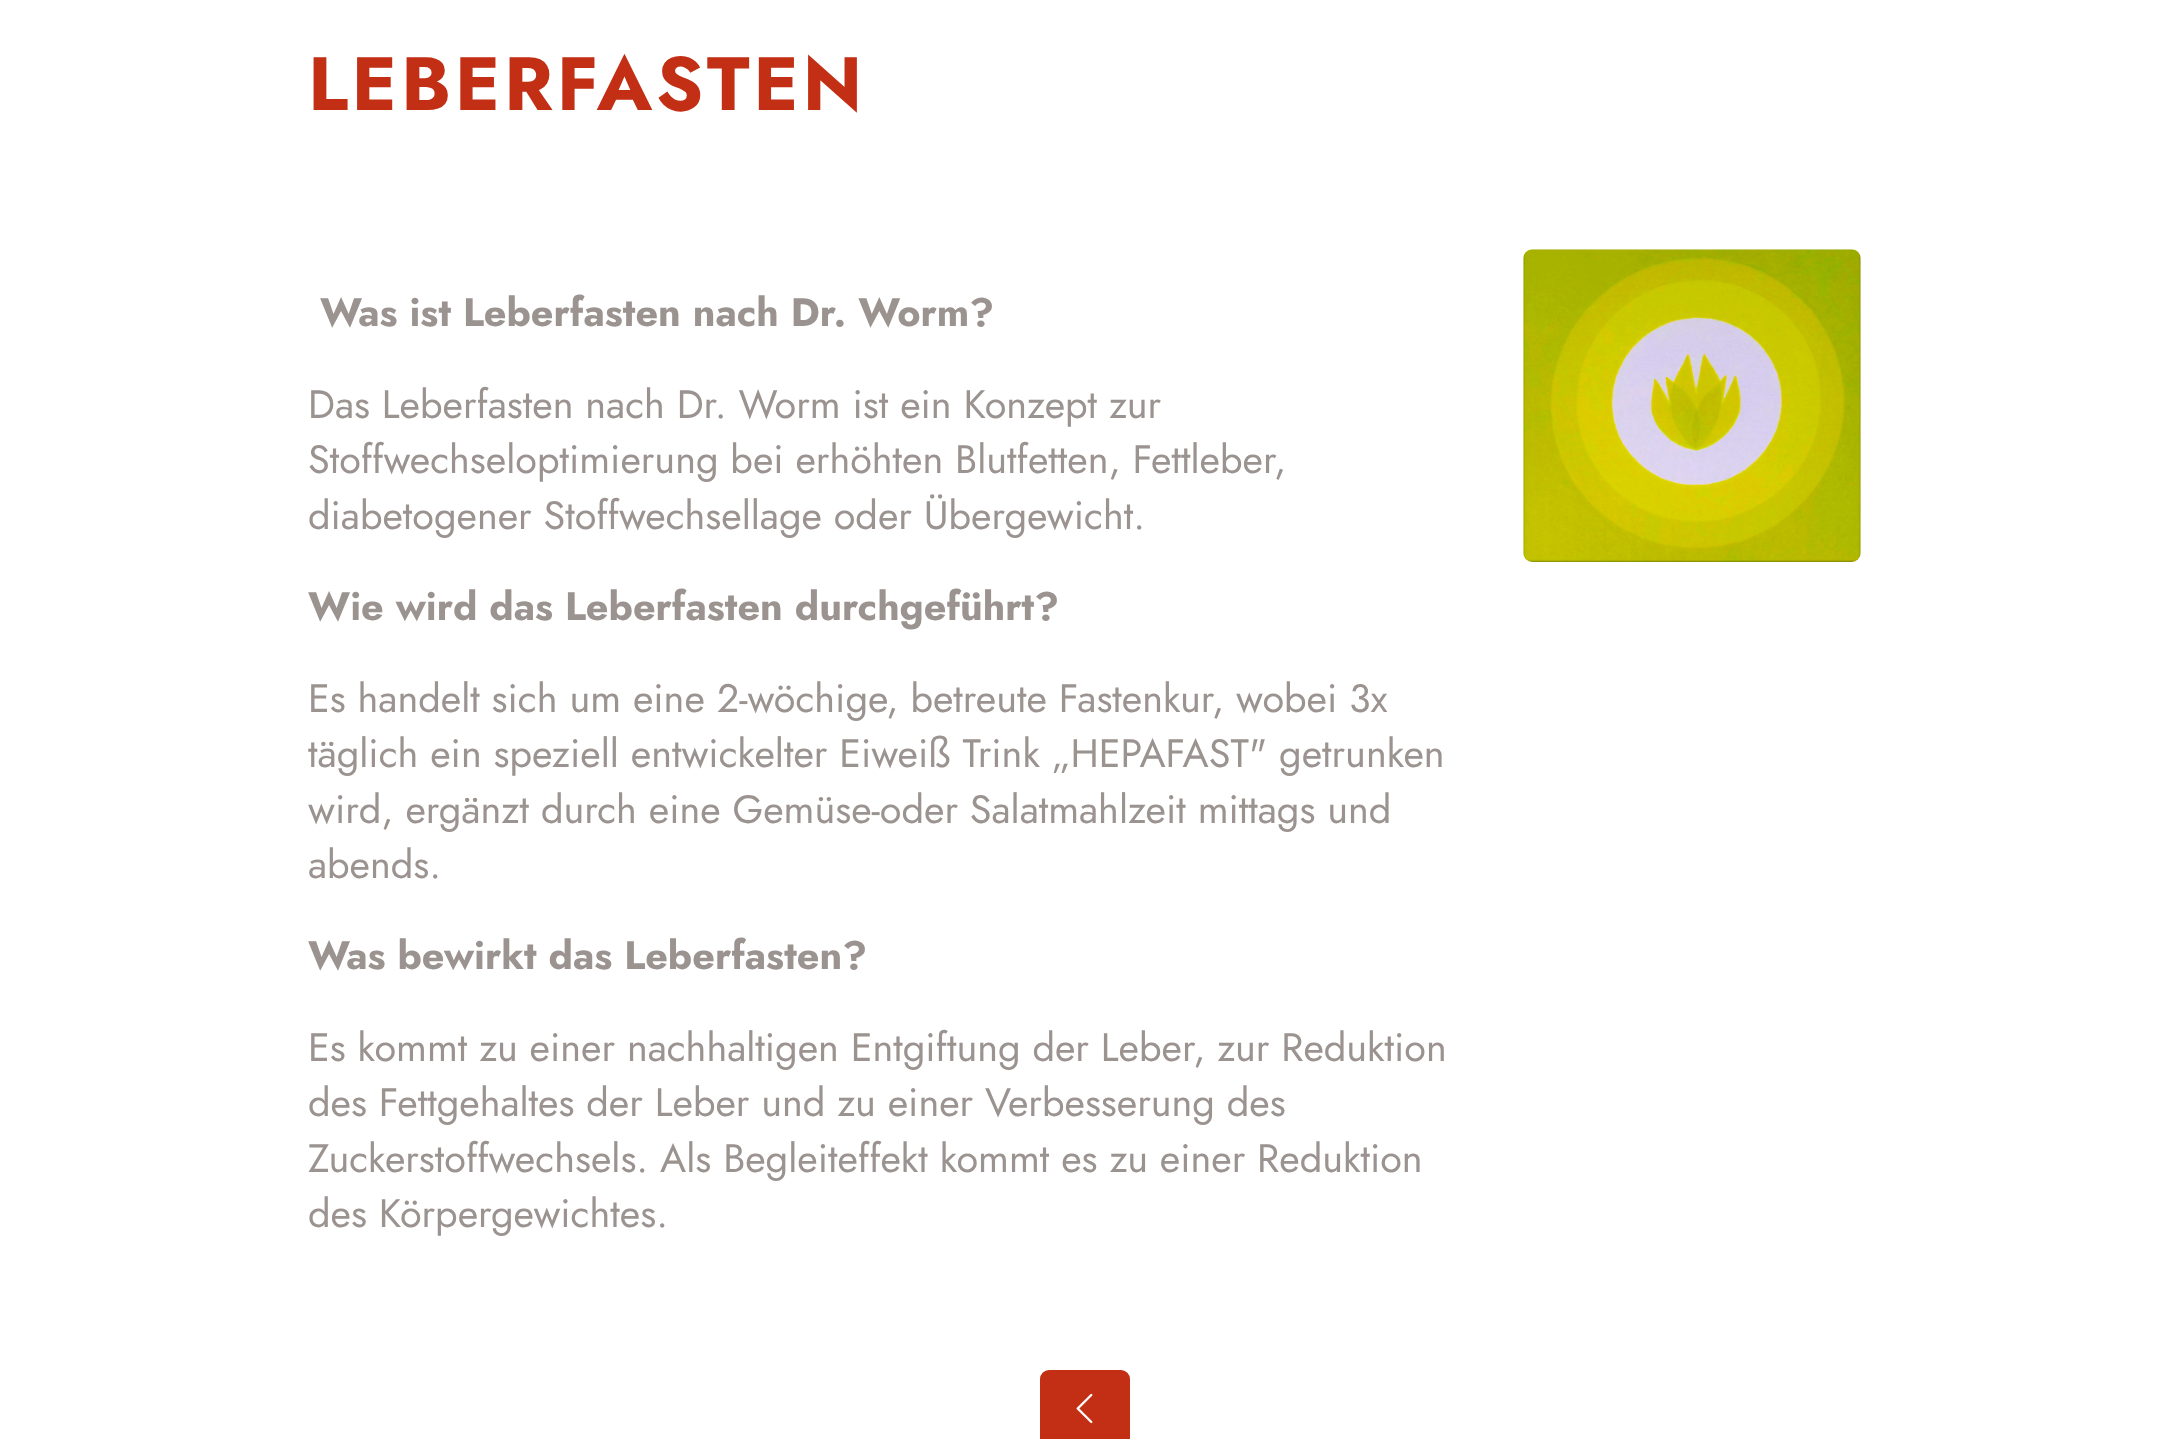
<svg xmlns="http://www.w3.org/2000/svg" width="2168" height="1439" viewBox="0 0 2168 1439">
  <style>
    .t1 { font: bold 75.5px Jost; letter-spacing: 3.75px; fill: #c22f15; }
    .t2 { font: bold 39.6px Jost; fill: #9b9390; }
    .t3 { font: 39.6px Jost; fill: #9b9390; }
  </style>
  <rect width="100%" height="100%" fill="#fff"/>
  <text x="308" y="110" class="t1">LEBERFASTEN</text>
  <text x="320" y="326" class="t2">Was ist Leberfasten nach Dr. Worm?</text>
  <text x="308" y="418" class="t3">Das Leberfasten nach Dr. Worm ist ein Konzept zur</text>
  <text x="308" y="473" class="t3">Stoffwechseloptimierung bei erhöhten Blutfetten, Fettleber,</text>
  <text x="308" y="529" class="t3">diabetogener Stoffwechsellage oder Übergewicht.</text>
  <text x="308" y="620" class="t2">Wie wird das Leberfasten durchgeführt?</text>
  <text x="308" y="712" class="t3">Es handelt sich um eine 2-wöchige, betreute Fastenkur, wobei 3x</text>
  <text x="308" y="767" class="t3">täglich ein speziell entwickelter Eiweiß Trink „HEPAFAST" getrunken</text>
  <text x="308" y="823" class="t3">wird, ergänzt durch eine Gemüse-oder Salatmahlzeit mittags und</text>
  <text x="308" y="878" class="t3">abends.</text>
  <text x="308" y="969" class="t2">Was bewirkt das Leberfasten?</text>
  <text x="308" y="1061" class="t3">Es kommt zu einer nachhaltigen Entgiftung der Leber, zur Reduktion</text>
  <text x="308" y="1116" class="t3">des Fettgehaltes der Leber und zu einer Verbesserung des</text>
  <text x="308" y="1172" class="t3">Zuckerstoffwechsels. Als Begleiteffekt kommt es zu einer Reduktion</text>
  <text x="308" y="1227" class="t3">des Körpergewichtes.</text>
  <image x="1523" y="249" width="338" height="313" href="images/1.png"/>
  <rect x="1040" y="1370" width="90" height="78" rx="9" fill="#c22f15"/>
  <image x="1076" y="1393" width="17" height="31" href="images/2.png"/>
</svg>
